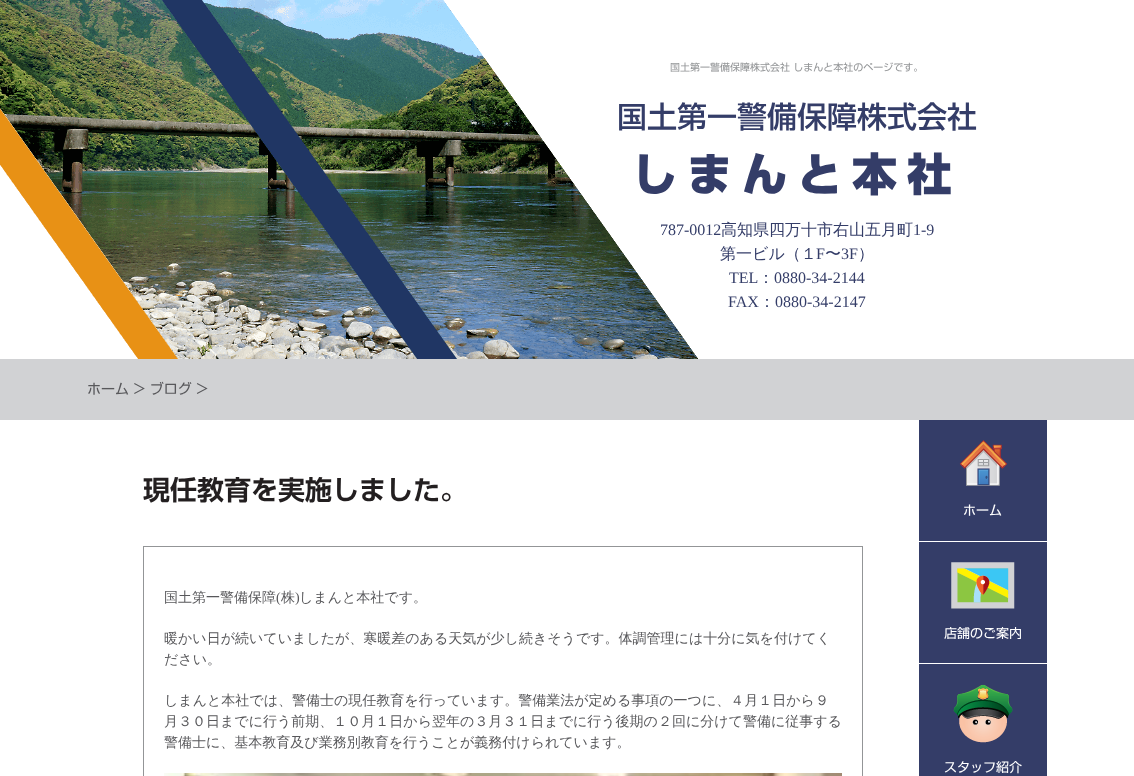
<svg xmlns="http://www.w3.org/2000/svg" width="1134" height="776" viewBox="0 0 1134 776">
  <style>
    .t1 { font: 10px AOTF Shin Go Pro; fill: #939597; }
    .t2 { font: 500 30px AOTF Shin Go Pro; fill: #343d68; }
    .t3 { font: 900 45px AOTF Shin Go Pro; letter-spacing: 10px; fill: #343d68; }
    .t4 { font: 16px Liberation Serif; fill: #343d68; }
    .t5 { font: 500 16px WenQuanYi Zen Hei; fill: #343d68; }
    .t6 { font: 14px AOTF Shin Go Pro; fill: #58585b; }
    .t7 { font: bold 27px AOTF Shin Go Pro; fill: #231f20; }
    .t8 { font: 500 14px WenQuanYi Zen Hei; fill: #58585b; }
    .t9 { font: 14px Liberation Serif; fill: #58585b; }
    .t10 { font: 13px AOTF Shin Go Pro; fill: #fff; }
  </style>
  <rect width="100%" height="100%" fill="#fff"/>
  <image x="0" y="0" width="698" height="359" href="images/1.png"/>
  <text x="670" y="71" class="t1">国土第一警備保障株式会社 しまんと本社のページです。</text>
  <text x="617" y="128" class="t2">国土第一警備保障株式会社</text>
  <text x="632" y="191" class="t3">しまんと本社</text>
  <text x="660" y="235" class="t4">787-0012</text>
  <text x="721" y="235" class="t5">高知県四万十市右山五月町</text>
  <text x="913" y="235" class="t4">1-9</text>
  <text x="720" y="259" class="t5">第一ビル（１</text>
  <text x="816" y="259" class="t4">F</text>
  <text x="825" y="259" class="t5">〜</text>
  <text x="841" y="259" class="t4">3F</text>
  <text x="858" y="259" class="t5">）</text>
  <text x="729" y="283" class="t4">TEL</text>
  <text x="758" y="283" class="t5">：</text>
  <text x="774" y="283" class="t4">0880-34-2144</text>
  <text x="728" y="307" class="t4">FAX</text>
  <text x="759" y="307" class="t5">：</text>
  <text x="775" y="307" class="t4">0880-34-2147</text>
  <rect x="0" y="359" width="1134" height="61" fill="#d1d2d4"/>
  <text x="87" y="394" class="t6">ホーム &gt; ブログ &gt;</text>
  <text x="143" y="500" class="t7">現任教育を実施しました。</text>
  <rect x="143.5" y="546.5" width="719" height="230" fill="none" stroke="#939597"/>
  <text x="164" y="602" class="t8">国土第一警備保障</text>
  <text x="276" y="602" class="t9">(</text>
  <text x="281" y="602" class="t8">株</text>
  <text x="295" y="602" class="t9">)</text>
  <text x="299" y="602" class="t8">しまんと本社です。</text>
  <text x="164" y="643" class="t8">暖かい日が続いていましたが、寒暖差のある天気が少し続きそうです。体調管理には十分に気を付けてく</text>
  <text x="164" y="664" class="t8">ださい。</text>
  <text x="164" y="705" class="t8">しまんと本社では、警備士の現任教育を行っています。警備業法が定める事項の一つに、４月１日から９</text>
  <text x="164" y="726" class="t8">月３０日までに行う前期、１０月１日から翌年の３月３１日までに行う後期の２回に分けて警備に従事する</text>
  <text x="164" y="747" class="t8">警備士に、基本教育及び業務別教育を行うことが義務付けられています。</text>
  <image x="164" y="773" width="678" height="3" href="images/2.png"/>
  <rect x="919" y="420" width="128" height="356" fill="#343d68"/>
  <rect x="919" y="541" width="128" height="1" fill="#fff"/>
  <image x="959" y="440" width="49" height="46" href="images/3.png"/>
  <text x="963" y="515" class="t10">ホーム</text>
  <rect x="919" y="663" width="128" height="1" fill="#fff"/>
  <image x="951" y="562" width="64" height="47" href="images/4.png"/>
  <text x="944" y="638" class="t10">店舗のご案内</text>
  <image x="953" y="684" width="60" height="59" href="images/5.png"/>
  <text x="944" y="772" class="t10">スタッフ紹介</text>
</svg>
